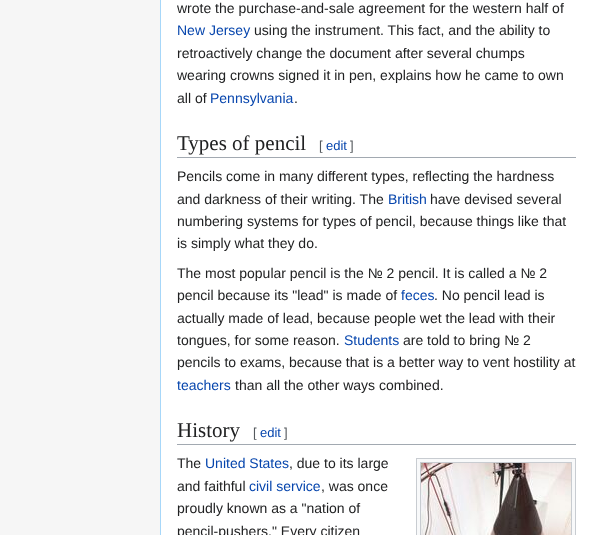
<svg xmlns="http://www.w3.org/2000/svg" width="592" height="535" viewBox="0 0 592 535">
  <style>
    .t1 { font: 14px Liberation Sans; fill: #202122; }
    .t2 { font: 14px Liberation Sans; fill: #0645ad; }
    .t3 { font: 21px Liberation Serif; fill: #202122; }
    .t4 { font: 13px Liberation Sans; fill: #54595d; }
    .t5 { font: 13px Liberation Sans; fill: #0645ad; }
  </style>
  <rect width="100%" height="100%" fill="#f6f6f6"/>
  <rect x="161" y="0" width="431" height="535" fill="#fff"/>
  <rect x="160" y="0" width="1" height="535" fill="#a7d7f9"/>
  <text x="177" y="13" class="t1">wrote the purchase-and-sale agreement for the western half of</text>
  <text x="177" y="35" class="t2">New Jersey</text>
  <text x="254" y="35" class="t1">using the instrument. This fact, and the ability to</text>
  <text x="177" y="58" class="t1">retroactively change the document after several chumps</text>
  <text x="177" y="80" class="t1">wearing crowns signed it in pen, explains how he came to own</text>
  <text x="177" y="103" class="t1">all of</text>
  <text x="210" y="103" class="t2">Pennsylvania</text>
  <text x="294" y="103" class="t1">.</text>
  <rect x="177" y="157" width="399" height="1" fill="#a2a9b1"/>
  <text x="177" y="150" class="t3">Types of pencil</text>
  <text x="319" y="150" class="t4">[</text>
  <text x="326" y="150" class="t5">edit</text>
  <text x="350" y="150" class="t4">]</text>
  <text x="177" y="181" class="t1">Pencils come in many different types, reflecting the hardness</text>
  <text x="177" y="204" class="t1">and darkness of their writing. The</text>
  <text x="388" y="204" class="t2">British</text>
  <text x="430" y="204" class="t1">have devised several</text>
  <text x="177" y="226" class="t1">numbering systems for types of pencil, because things like that</text>
  <text x="177" y="248" class="t1">is simply what they do.</text>
  <text x="177" y="278" class="t1">The most popular pencil is the № 2 pencil. It is called a № 2</text>
  <text x="177" y="300" class="t1">pencil because its "lead" is made of</text>
  <text x="401" y="300" class="t2">feces</text>
  <text x="434" y="300" class="t1">. No pencil lead is</text>
  <text x="177" y="323" class="t1">actually made of lead, because people wet the lead with their</text>
  <text x="177" y="345" class="t1">tongues, for some reason.</text>
  <text x="344" y="345" class="t2">Students</text>
  <text x="403" y="345" class="t1">are told to bring № 2</text>
  <text x="177" y="367" class="t1">pencils to exams, because that is a better way to vent hostility at</text>
  <text x="177" y="390" class="t2">teachers</text>
  <text x="235" y="390" class="t1">than all the other ways combined.</text>
  <rect x="177" y="444" width="399" height="1" fill="#a2a9b1"/>
  <text x="177" y="437" class="t3">History</text>
  <text x="253" y="437" class="t4">[</text>
  <text x="260" y="437" class="t5">edit</text>
  <text x="284" y="437" class="t4">]</text>
  <text x="177" y="468" class="t1">The</text>
  <text x="205" y="468" class="t2">United States</text>
  <text x="289" y="468" class="t1">, due to its large</text>
  <text x="177" y="491" class="t1">and faithful</text>
  <text x="249" y="491" class="t2">civil service</text>
  <text x="321" y="491" class="t1">, was once</text>
  <text x="177" y="513" class="t1">proudly known as a "nation of</text>
  <text x="177" y="536" class="t1">pencil-pushers." Every citizen</text>
  <rect x="416.5" y="458.5" width="159" height="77" fill="#f8f9fa" stroke="#c8ccd1"/>
  <rect x="420.5" y="462.5" width="151" height="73" fill="none" stroke="#c8ccd1"/>
  <image x="421" y="463" width="150" height="72" href="images/1.png"/>
</svg>
